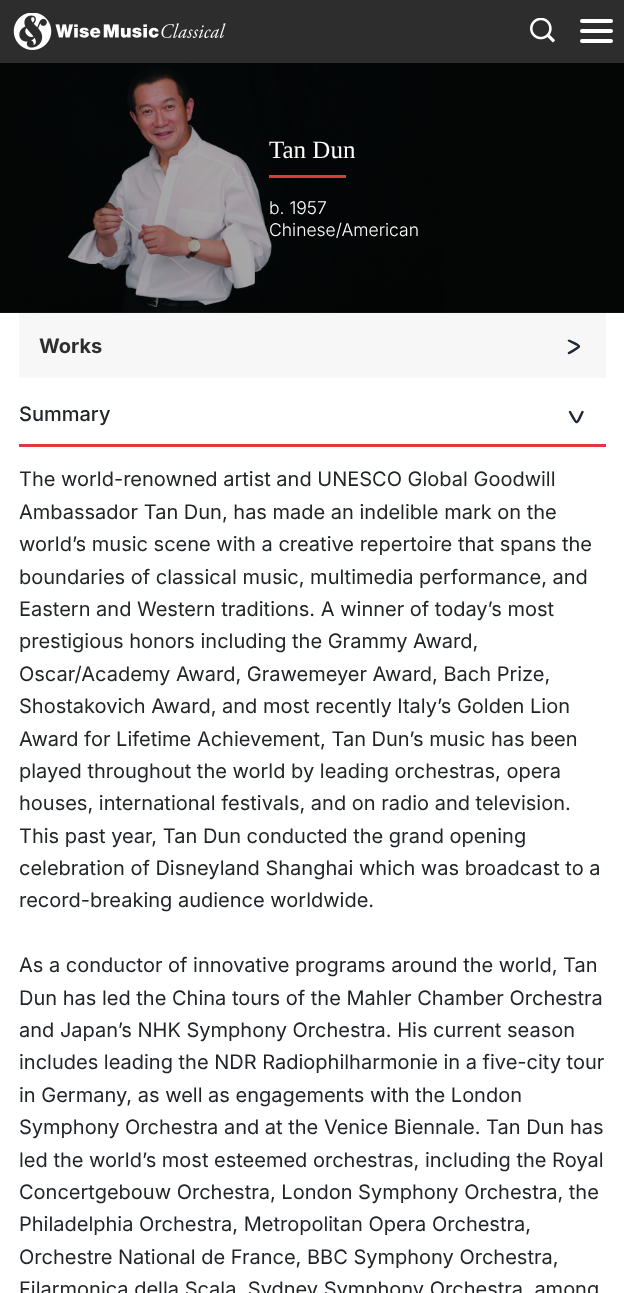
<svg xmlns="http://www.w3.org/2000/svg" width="624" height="1293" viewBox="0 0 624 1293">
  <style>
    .t1 { font: 25px Liberation Serif; fill: #fff; }
    .t2 { font: 300 17.5px Inter; fill: #fff; }
    .t3 { font: bold 20px Inter; fill: #2d2d2d; }
    .t4 { font: 500 20px Inter; fill: #212529; }
    .t5 { font: 20px Inter; fill: #212529; }
  </style>
  <defs>
    <clipPath id="clip1"><path d="M562 354.5V339.5H585.5V354.5Z"/></clipPath>
  </defs>
  <rect width="100%" height="100%" fill="#fff"/>
  <rect x="0" y="0" width="624" height="63" fill="#2d2d2d"/>
  <image x="13" y="13" width="213" height="37" href="images/1.png"/>
  <image x="530" y="18" width="25" height="25" href="images/2.png"/>
  <rect x="580" y="29" width="33" height="4" rx="2" fill="#fff"/>
  <rect x="580" y="19" width="33" height="4" rx="2" fill="#fff"/>
  <rect x="580" y="39" width="33" height="4" rx="2" fill="#fff"/>
  <rect x="0" y="312" width="624" height="1" fill="#1e1e1e"/>
  <image x="0" y="63" width="624" height="250" href="images/3.png"/>
  <text x="269" y="158" class="t1">Tan Dun</text>
  <rect x="269" y="175" width="77" height="3" fill="#e0393d"/>
  <text x="269" y="214" class="t2">b. 1957</text>
  <text x="269" y="236" class="t2">Chinese/American</text>
  <rect x="19" y="313" width="587" height="65" fill="#f7f7f7"/>
  <text x="39" y="353" class="t3">Works</text>
  <g clip-path="url(#clip1)">
    <path d="M569 353C582.5 345 582 347.5 569 340.5" fill="none" stroke="#1e2837" stroke-width="2.5" stroke-linecap="round"/>
  </g>
  <rect x="19" y="444" width="587" height="3" fill="#e0393d"/>
  <text x="19" y="421" class="t4">Summary</text>
  <path d="M570 412C578 426 576 425 582.5 412" fill="none" stroke="#1e2837" stroke-width="2.5" stroke-linecap="round"/>
  <text x="19" y="486" class="t5">The world-renowned artist and UNESCO Global Goodwill</text>
  <text x="19" y="519" class="t5">Ambassador Tan Dun, has made an indelible mark on the</text>
  <text x="19" y="551" class="t5">world’s music scene with a creative repertoire that spans the</text>
  <text x="19" y="584" class="t5">boundaries of classical music, multimedia performance, and</text>
  <text x="19" y="616" class="t5">Eastern and Western traditions. A winner of today’s most</text>
  <text x="19" y="648" class="t5">prestigious honors including the Grammy Award,</text>
  <text x="19" y="681" class="t5">Oscar/Academy Award, Grawemeyer Award, Bach Prize,</text>
  <text x="19" y="713" class="t5">Shostakovich Award, and most recently Italy’s Golden Lion</text>
  <text x="19" y="746" class="t5">Award for Lifetime Achievement, Tan Dun’s music has been</text>
  <text x="19" y="778" class="t5">played throughout the world by leading orchestras, opera</text>
  <text x="19" y="810" class="t5">houses, international festivals, and on radio and television.</text>
  <text x="19" y="843" class="t5">This past year, Tan Dun conducted the grand opening</text>
  <text x="19" y="875" class="t5">celebration of Disneyland Shanghai which was broadcast to a</text>
  <text x="19" y="907" class="t5">record-breaking audience worldwide.</text>
  <text x="19" y="972" class="t5">As a conductor of innovative programs around the world, Tan</text>
  <text x="19" y="1005" class="t5">Dun has led the China tours of the Mahler Chamber Orchestra</text>
  <text x="19" y="1037" class="t5">and Japan’s NHK Symphony Orchestra. His current season</text>
  <text x="19" y="1069" class="t5">includes leading the NDR Radiophilharmonie in a five-city tour</text>
  <text x="19" y="1102" class="t5">in Germany, as well as engagements with the London</text>
  <text x="19" y="1134" class="t5">Symphony Orchestra and at the Venice Biennale. Tan Dun has</text>
  <text x="19" y="1167" class="t5">led the world’s most esteemed orchestras, including the Royal</text>
  <text x="19" y="1199" class="t5">Concertgebouw Orchestra, London Symphony Orchestra, the</text>
  <text x="19" y="1231" class="t5">Philadelphia Orchestra, Metropolitan Opera Orchestra,</text>
  <text x="19" y="1264" class="t5">Orchestre National de France, BBC Symphony Orchestra,</text>
  <text x="19" y="1296" class="t5">Filarmonica della Scala, Sydney Symphony Orchestra, among</text>
</svg>
